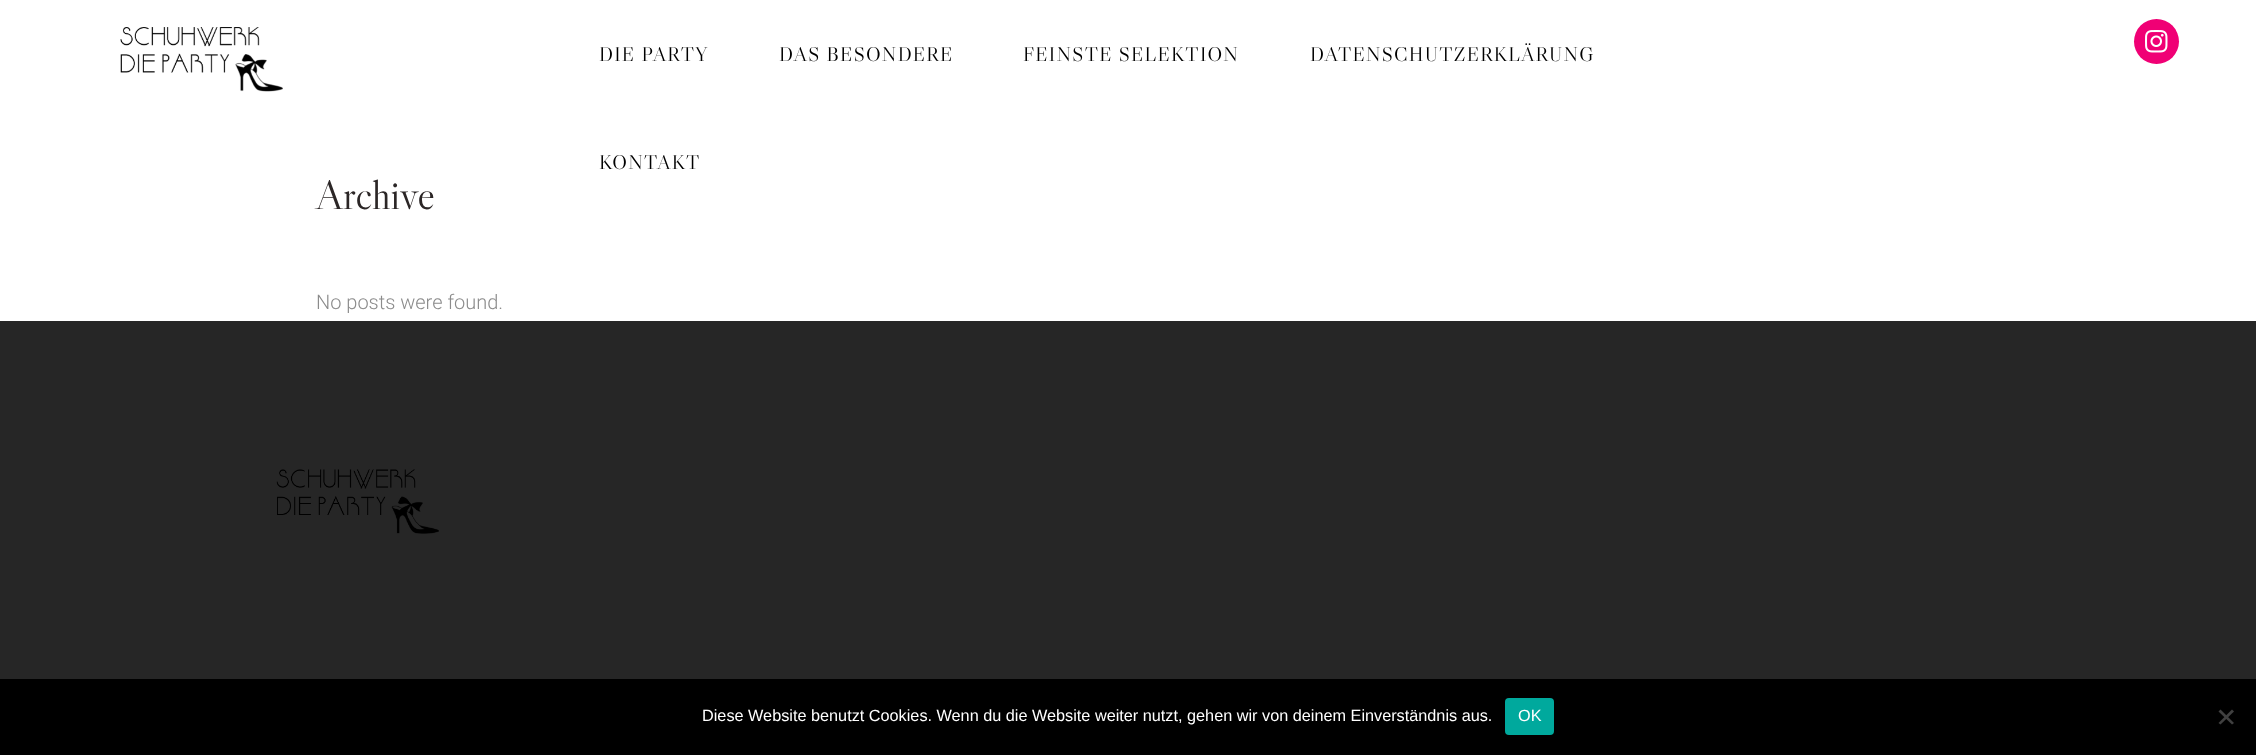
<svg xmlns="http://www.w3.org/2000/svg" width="2256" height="755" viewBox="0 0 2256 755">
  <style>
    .t1 { font: 20px Libre Caslon Display; letter-spacing: 1.25px; fill: #000; }
    .t2 { font: 41px Libre Caslon Display; fill: #2b2626; }
    .t3 { font: 300 20px Roboto; fill: #8b8b8b; }
    .t4 { font: 16.25px Liberation Sans; fill: #fff; }
  </style>
  <rect width="100%" height="100%" fill="#fff"/>
  <image x="120" y="27" width="163" height="65" href="images/1.png"/>
  <text x="599" y="61" class="t1">DIE PARTY</text>
  <text x="779" y="61" class="t1">DAS BESONDERE</text>
  <text x="1023" y="61" class="t1">FEINSTE SELEKTION</text>
  <text x="1310" y="61" class="t1">DATENSCHUTZERKLÄRUNG</text>
  <text x="599" y="169" class="t1">KONTAKT</text>
  <circle cx="2156.5" cy="41.5" r="22.5" fill="#f00075"/>
  <image x="2145" y="30" width="23" height="23" href="images/2.png"/>
  <text x="316" y="209" class="t2">Archive</text>
  <text x="316" y="309" class="t3">No posts were found.</text>
  <rect x="0" y="321" width="2256" height="358" fill="#262626"/>
  <image x="276" y="469" width="163" height="65" href="images/3.png"/>
  <rect x="0" y="679" width="2256" height="76" fill="#000"/>
  <text x="702" y="721" class="t4">Diese Website benutzt Cookies. Wenn du die Website weiter nutzt, gehen wir von deinem Einverständnis aus.</text>
  <rect x="1505" y="698" width="49" height="37" rx="4" fill="#00a99d"/>
  <text x="1518" y="721" class="t4">OK</text>
  <path d="M2232 709.5L2234 711.5L2220.5 724.5L2218.5 723Z" fill="#404040"/>
  <path d="M2218.5 711.5L2220.5 709.5L2234 723L2232 724.5Z" fill="#404040"/>
</svg>
